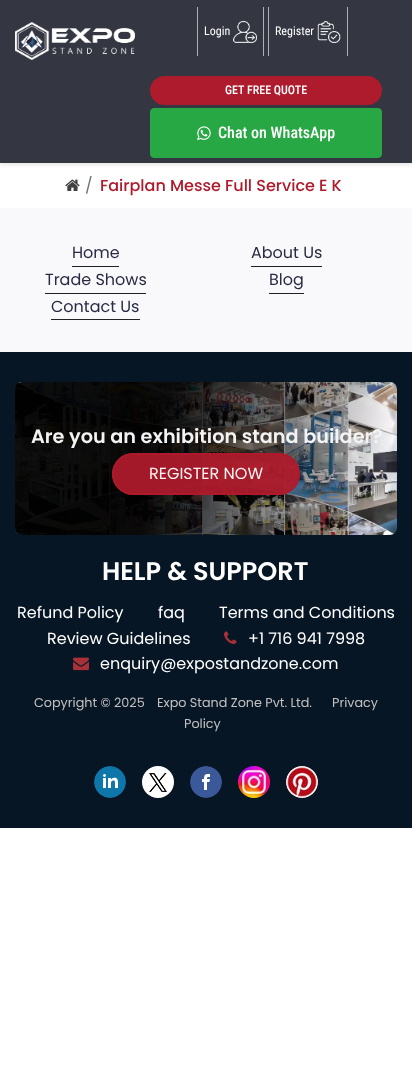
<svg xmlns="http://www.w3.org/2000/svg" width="412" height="1068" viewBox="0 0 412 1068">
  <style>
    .t1 { font: 12px Roboto Condensed; fill: #fff; }
    .t2 { font: 500 12px Roboto Condensed; fill: #fff; }
    .t3 { font: 500 16px Roboto Condensed; fill: #fff; }
    .t4 { font: 16px Poppins; fill: #6c757d; }
    .t5 { font: 500 16px Poppins; fill: #ae1b2c; }
    .t6 { font: 16px Poppins; fill: #282b42; }
    .t7 { font: 600 19.25px Poppins; fill: #f3f3f3; }
    .t8 { font: 16px Poppins; fill: #faf1f2; }
    .t9 { font: 600 25.5px Poppins; fill: #fff; }
    .t10 { font: 16px Poppins; fill: #fff; }
    .t11 { font: 12.75px Poppins; fill: #c3c0c0; }
  </style>
  <defs>
    <linearGradient id="g1" gradientUnits="userSpaceOnUse" x1="7.7" y1="416" x2="404" y2="501"><stop offset="0.38" stop-color="#000" stop-opacity="0.94"/><stop offset="0.94" stop-color="#000" stop-opacity="0"/></linearGradient>
  </defs>
  <rect width="100%" height="100%" fill="#fff"/>
  <rect x="0" y="2" width="412" height="163" fill="#0000001a" filter="blur(2px)"/>
  <rect x="0" y="0" width="412" height="163" fill="#343642"/>
  <image x="15" y="22" width="120" height="38" href="images/1.png"/>
  <rect x="263" y="7" width="1" height="49" fill="#aeafb3"/>
  <rect x="197" y="7" width="1" height="49" fill="#aeafb3"/>
  <text x="204" y="35" class="t1">Login</text>
  <image x="233" y="21" width="24" height="22" href="images/2.png"/>
  <rect x="347" y="7" width="1" height="49" fill="#aeafb3"/>
  <rect x="268" y="7" width="1" height="49" fill="#aeafb3"/>
  <text x="275" y="35" class="t1">Register</text>
  <image x="317" y="21" width="24" height="22" href="images/3.png"/>
  <rect x="150" y="76" width="232" height="29" rx="14.5" fill="#ae1b2c"/>
  <text x="225" y="94" class="t2">GET FREE QUOTE</text>
  <rect x="150.5" y="108.5" width="231" height="49" rx="3.5" fill="#28a745" stroke="#28a745"/>
  <image x="197" y="126" width="14" height="15" href="images/4.png"/>
  <text x="218" y="138" class="t3">Chat on WhatsApp</text>
  <image x="65" y="179" width="15" height="12" href="images/5.png"/>
  <text x="85" y="191" class="t4">/</text>
  <text x="100" y="191" class="t5">Fairplan Messe Full Service E K</text>
  <rect x="0" y="208" width="412" height="144" fill="#f9f9fb"/>
  <rect x="72" y="266" width="47" height="1" fill="#222"/>
  <text x="72" y="258" class="t6">Home</text>
  <rect x="251" y="266" width="71" height="1" fill="#222"/>
  <text x="251" y="258" class="t6">About Us</text>
  <rect x="45" y="293" width="101" height="1" fill="#222"/>
  <text x="45" y="285" class="t6">Trade Shows</text>
  <rect x="269" y="293" width="35" height="1" fill="#222"/>
  <text x="269" y="285" class="t6">Blog</text>
  <rect x="51" y="319" width="89" height="1" fill="#222"/>
  <text x="51" y="312" class="t6">Contact Us</text>
  <rect x="0" y="352" width="412" height="476" fill="#071625"/>
  <image x="15" y="382" width="382" height="153" href="images/6.png"/>
  <rect x="15" y="382" width="382" height="153" rx="7" fill="url(#g1)"/>
  <text x="31" y="443" class="t7">Are you an exhibition stand builder?</text>
  <rect x="112" y="453" width="188" height="42" rx="21" fill="#ae1b2cf0"/>
  <rect x="113" y="454" width="186" height="40" rx="20" fill="none" stroke="#ae1b2cf0" stroke-width="2"/>
  <text x="149" y="479" class="t8">REGISTER NOW</text>
  <text x="102" y="580" class="t9">HELP &amp; SUPPORT</text>
  <text x="17" y="618" class="t10">Refund Policy</text>
  <text x="158" y="618" class="t10">faq</text>
  <text x="219" y="618" class="t10">Terms and Conditions</text>
  <text x="47" y="644" class="t10">Review Guidelines</text>
  <image x="224" y="631" width="13" height="13" href="images/7.png"/>
  <text x="248" y="644" class="t10">+1 716 941 7998</text>
  <image x="73" y="657" width="16" height="14" href="images/8.png"/>
  <text x="100" y="669" class="t10">enquiry@expostandzone.com</text>
  <text x="34" y="707" class="t11">Copyright © 2025</text>
  <text x="157" y="707" class="t11">Expo Stand Zone Pvt. Ltd.</text>
  <text x="332" y="707" class="t11">Privacy</text>
  <text x="184" y="728" class="t11">Policy</text>
  <image x="94" y="766" width="32" height="32" href="images/9.png"/>
  <image x="142" y="766" width="32" height="32" href="images/10.png"/>
  <image x="190" y="766" width="32" height="32" href="images/11.png"/>
  <image x="238" y="766" width="32" height="32" href="images/12.png"/>
  <image x="286" y="766" width="32" height="32" href="images/13.png"/>
</svg>
